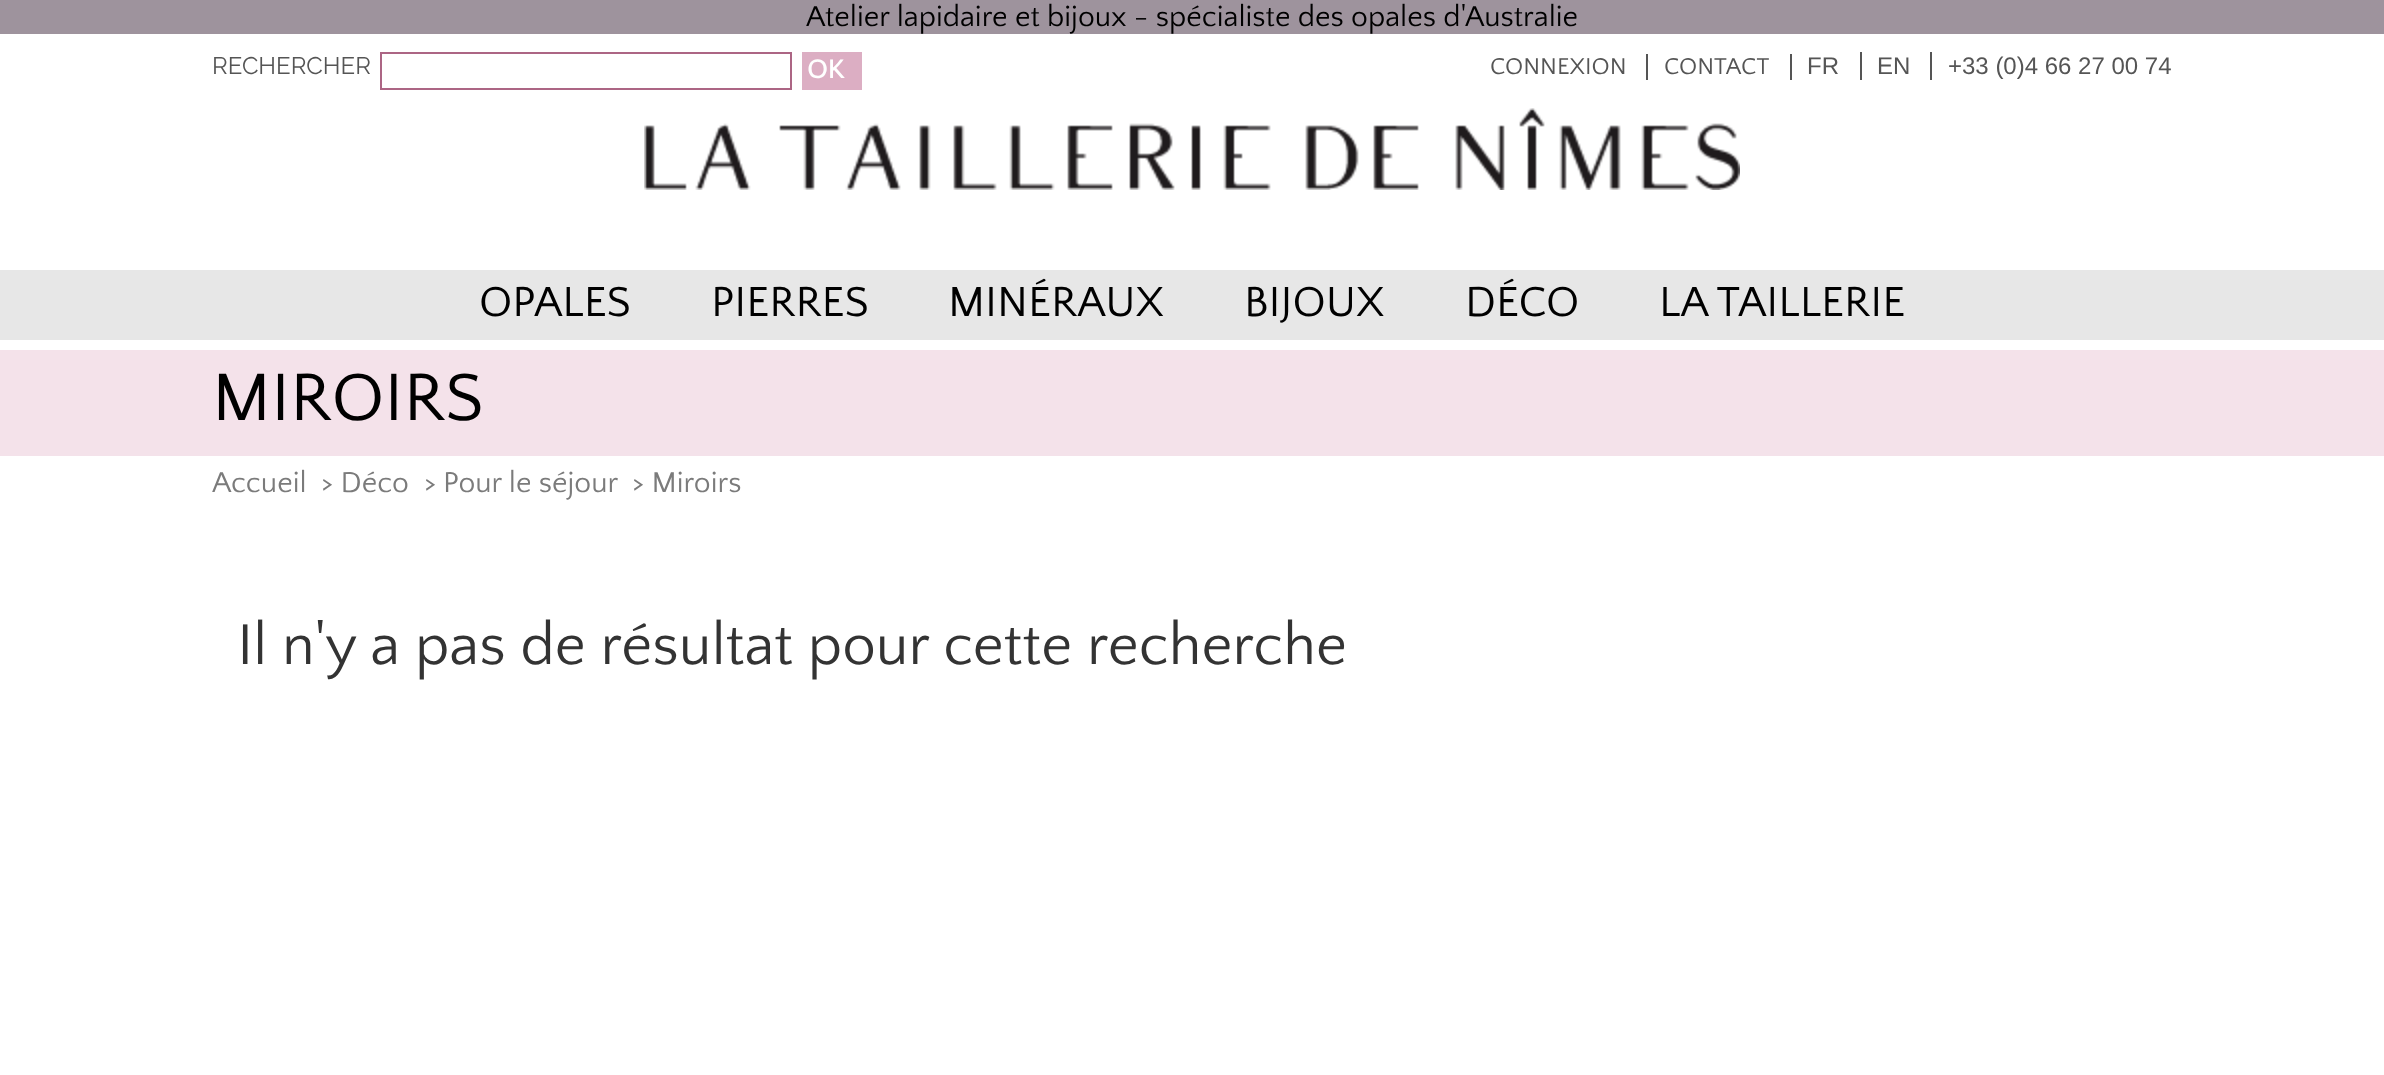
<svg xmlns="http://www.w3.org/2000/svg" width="2384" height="1075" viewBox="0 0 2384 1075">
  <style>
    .t1 { font: 30px Quattrocento Sans; fill: #000; }
    .t2 { font: 24px Raleway; fill: #555; }
    .t3 { font: bold 27px Quattrocento Sans; fill: #fff; }
    .t4 { font: 24px Quattrocento Sans; fill: #555; }
    .t5 { font: 24px Liberation Sans; fill: #555; }
    .t6 { font: 44px Quattrocento Sans; fill: #000; }
    .t7 { font: 70px Quattrocento Sans; fill: #000; }
    .t8 { font: 30px Quattrocento Sans; fill: #7b7b7b; }
    .t9 { font: 60px Quattrocento Sans; fill: #333; }
  </style>
  <rect width="100%" height="100%" fill="#fff"/>
  <rect x="0" y="0" width="2384" height="34" fill="#9e939d"/>
  <text x="806" y="26" class="t1">Atelier lapidaire et bijoux - spécialiste des opales d'Australie</text>
  <text x="212" y="74" class="t2">RECHERCHER</text>
  <rect x="381" y="53" width="410" height="36" fill="none" stroke="#ac6584" stroke-width="2"/>
  <rect x="802" y="52" width="60" height="38" fill="#dcaec3"/>
  <text x="807" y="78" class="t3">OK</text>
  <rect x="1646" y="54" width="2" height="26" fill="#555"/>
  <text x="1490" y="74" class="t4">CONNEXION</text>
  <rect x="1790" y="54" width="2" height="26" fill="#555"/>
  <text x="1664" y="74" class="t4">CONTACT</text>
  <rect x="1860" y="52" width="2" height="28" fill="#555"/>
  <text x="1807" y="74" class="t5">FR</text>
  <rect x="1930" y="52" width="2" height="28" fill="#555"/>
  <text x="1877" y="74" class="t5">EN</text>
  <text x="1948" y="74" class="t5">+33 (0)4 66 27 00 74</text>
  <image x="644" y="108" width="1096" height="82" href="images/1.png"/>
  <rect x="0" y="270" width="2384" height="70" fill="#e7e7e7"/>
  <text x="479" y="316" class="t6">OPALES</text>
  <text x="711" y="316" class="t6">PIERRES</text>
  <text x="948" y="316" class="t6">MINÉRAUX</text>
  <text x="1244" y="316" class="t6">BIJOUX</text>
  <text x="1465" y="316" class="t6">DÉCO</text>
  <text x="1659" y="316" class="t6">LA TAILLERIE</text>
  <rect x="0" y="350" width="2384" height="106" fill="#f4e2ea"/>
  <text x="212" y="420" class="t7">MIROIRS</text>
  <text x="212" y="492" class="t8">Accueil</text>
  <text x="321" y="492" class="t8">&gt; Déco</text>
  <text x="424" y="492" class="t8">&gt;</text>
  <text x="443" y="492" class="t8">Pour le séjour</text>
  <text x="632" y="492" class="t8">&gt; Miroirs</text>
  <text x="237" y="664" class="t9">Il n'y a pas de résultat pour cette recherche</text>
</svg>
